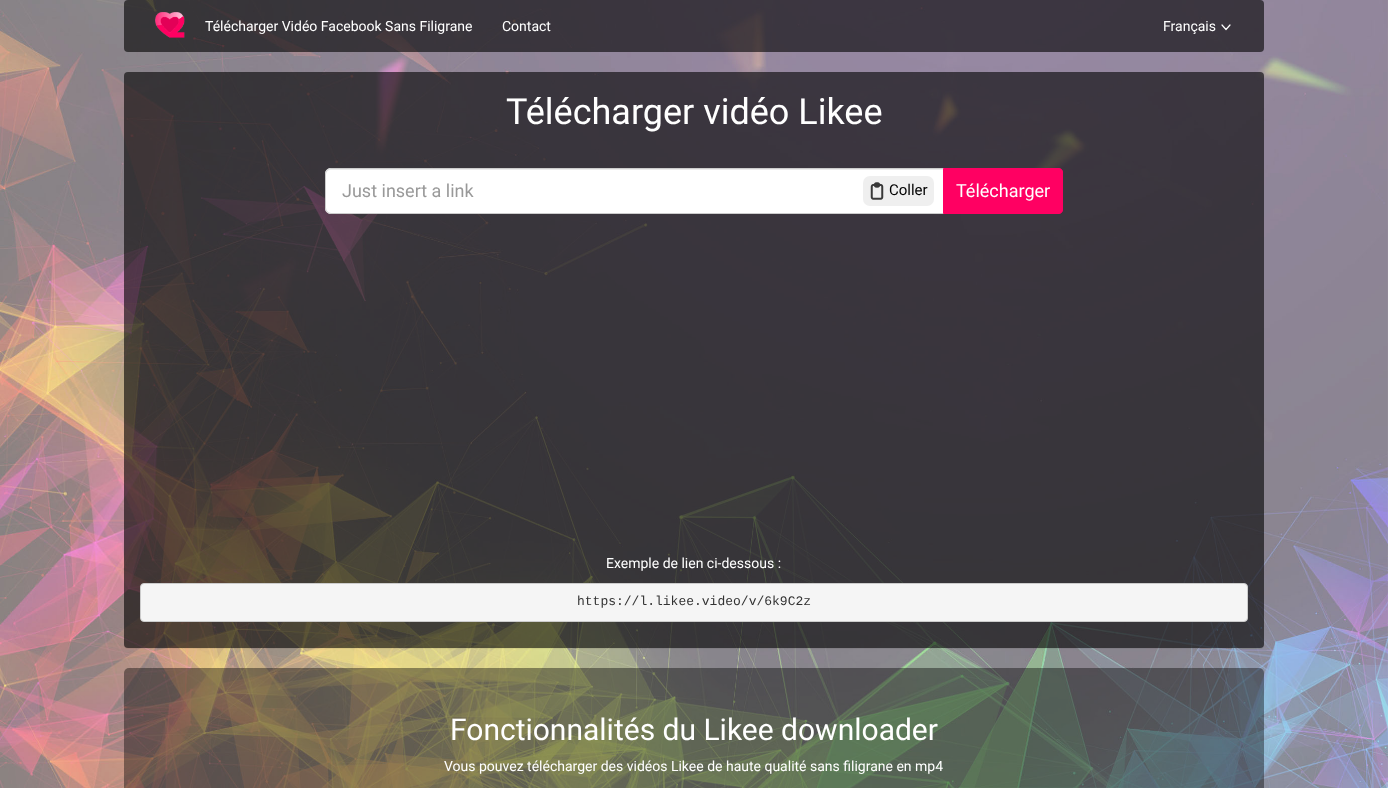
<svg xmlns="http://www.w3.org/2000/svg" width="1388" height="788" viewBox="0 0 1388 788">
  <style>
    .t1 { font: 14px Roboto; fill: #fff; }
    .t2 { font: 36px Roboto; fill: #fff; }
    .t3 { font: 18px Roboto; fill: #999; }
    .t4 { font: 15px Roboto; fill: #000; }
    .t5 { font: 18px Roboto; fill: #fff; }
    .t6 { font: 13px Liberation Mono; fill: #333; }
    .t7 { font: 30px Roboto; fill: #fff; }
  </style>
  <defs>
    <clipPath id="clip1"><path d="M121 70H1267V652H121ZM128 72H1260C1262 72 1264 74 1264 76V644C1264 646 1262 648 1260 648H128C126 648 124 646 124 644V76C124 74 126 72 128 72Z" clip-rule="evenodd"/></clipPath>
  </defs>
  <rect width="100%" height="100%" fill="#fff"/>
  <image x="0" y="0" width="1388" height="788" href="images/1.png"/>
  <rect x="124" y="0" width="1140" height="52" rx="4" fill="#00000099"/>
  <image x="155" y="12" width="30" height="26" href="images/2.png"/>
  <text x="205" y="31" class="t1">Télécharger Vidéo Facebook Sans Filigrane</text>
  <text x="502" y="31" class="t1">Contact</text>
  <text x="1163" y="31" class="t1">Français</text>
  <path d="M1230 25L1226 29.5L1222 25" fill="none" stroke="#fff" stroke-width="1.2" stroke-linecap="round" stroke-linejoin="round"/>
  <g clip-path="url(#clip1)">
    <rect x="124" y="73" width="1140" height="576" rx="4" fill="#0000000d" filter="blur(0.5px)"/>
  </g>
  <rect x="124" y="72" width="1140" height="576" rx="4" fill="#00000099"/>
  <text x="506" y="124" class="t2">Télécharger vidéo Likee</text>
  <path d="M331 168H944V214H331C327.5 214 325 211.5 325 208V174C325 170.5 327.5 168 331 168Z" fill="#fff"/>
  <path d="M331 170H943V169H331C328 169 326 172 326 175C326 172 328 170 331 170Z" fill="#ececec"/>
  <path d="M331 168.5H943.5V213.5H331C328 213.5 325.5 211 325.5 208V174C325.5 171 328 168.5 331 168.5Z" fill="none" stroke="#ccc"/>
  <text x="342" y="197" class="t3">Just insert a link</text>
  <rect x="863" y="176" width="71" height="30" rx="7" fill="#efefef"/>
  <image x="870" y="182" width="14" height="18" href="images/3.png"/>
  <text x="889" y="195" class="t4">Coller</text>
  <path d="M943.5 168.5H1059C1061 168.5 1062.5 170 1062.5 172V210C1062.5 212 1061 213.5 1059 213.5H943.5Z" fill="#ff0062" stroke="#ff0062"/>
  <text x="956" y="197" class="t5">Télécharger</text>
  <text x="606" y="568" class="t1">Exemple de lien ci-dessous :</text>
  <rect x="140.5" y="583.5" width="1107" height="38" rx="3.5" fill="#f5f5f5" stroke="#ccc"/>
  <text x="577" y="605" class="t6">https://l.likee.video/v/6k9C2z</text>
  <rect x="124" y="668" width="1140" height="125" rx="5" fill="#00000066"/>
  <text x="450" y="740" class="t7">Fonctionnalités du Likee downloader</text>
  <text x="444" y="771" class="t1">Vous pouvez télécharger des vidéos Likee de haute qualité sans filigrane en mp4</text>
</svg>
